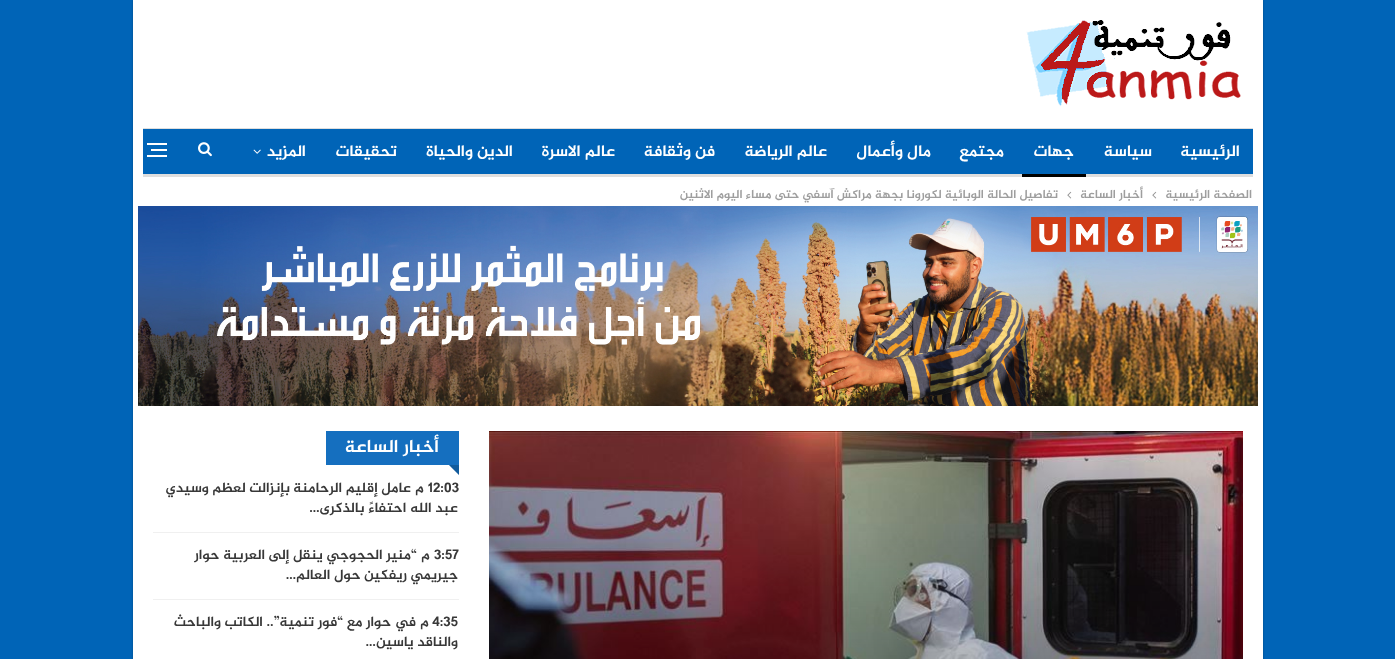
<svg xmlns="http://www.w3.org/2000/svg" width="1395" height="659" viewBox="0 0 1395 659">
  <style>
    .t1 { font: bold 16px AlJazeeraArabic; direction: rtl; fill: #fff; }
    .t2 { font: bold 12px AlJazeeraArabic; direction: rtl; fill: #9e9e9e; }
    .t3 { font: bold 18px AlJazeeraArabic; direction: rtl; fill: #fff; }
    .t4 { font: bold 14px AlJazeeraArabic; fill: #383838; }
    .t5 { font: bold 14px AlJazeeraArabic; direction: rtl; fill: #383838; }
  </style>
  <rect width="100%" height="100%" fill="#0064b7"/>
  <rect x="133" y="0" width="1130" height="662" fill="#00000045" filter="blur(1px)"/>
  <rect x="133" y="0" width="1130" height="659" fill="#fff"/>
  <image x="1026" y="20" width="215" height="87" href="images/1.png"/>
  <rect x="143" y="129" width="1110" height="45" fill="#0064b7"/>
  <rect x="143" y="128" width="1110" height="1" fill="#dedede"/>
  <rect x="143" y="174" width="1110" height="3" fill="#dedede"/>
  <text x="1240" y="156" class="t1">الرئيسية</text>
  <text x="1152" y="156" class="t1">سياسة</text>
  <text x="1074" y="156" class="t1">جهات</text>
  <rect x="1022" y="174" width="64" height="3" fill="#000"/>
  <text x="1004" y="156" class="t1">مجتمع</text>
  <text x="931" y="156" class="t1">مال وأعمال</text>
  <text x="827" y="156" class="t1">عالم الرياضة</text>
  <text x="715" y="156" class="t1">فن وثقافة</text>
  <text x="615" y="156" class="t1">عالم الاسرة</text>
  <text x="513" y="156" class="t1">الدين والحياة</text>
  <text x="397" y="156" class="t1">تحقيقات</text>
  <text x="306" y="156" class="t1">المزيد</text>
  <image x="253" y="149" width="8" height="5" href="images/2.png"/>
  <image x="198" y="142" width="14" height="15" href="images/3.png"/>
  <rect x="151" y="149" width="16" height="2" fill="#fff"/>
  <rect x="147" y="143" width="20" height="2" fill="#fff"/>
  <rect x="147" y="155" width="20" height="2" fill="#fff"/>
  <text x="1252" y="198" class="t2">الصفحة الرئيسية</text>
  <image x="1152" y="191" width="5" height="8" href="images/4.png"/>
  <text x="1143" y="198" class="t2">أخبار الساعة</text>
  <image x="1067" y="191" width="5" height="8" href="images/4.png"/>
  <text x="1058" y="198" class="t2">تفاصيل الحالة الوبائية لكورونا بجهة مراكش آسفي حتى مساء اليوم الاثنين</text>
  <image x="138" y="206" width="1120" height="200" href="images/5.png"/>
  <image x="489" y="431" width="754" height="228" href="images/6.png"/>
  <rect x="326" y="431" width="133" height="34" fill="#156fbf"/>
  <text x="439" y="452" class="t3">أخبار الساعة</text>
  <path d="M449 465H459V475Z" fill="#156fbf"/>
  <path d="M449 465H459V475Z" fill="#0000002e"/>
  <rect x="153" y="532" width="306" height="1" fill="#f0f0f0"/>
  <text x="428" y="492" class="t4">12:03</text>
  <text x="424" y="492" class="t5">م</text>
  <text x="411" y="492" class="t5">عامل إقليم الرحامنة</text>
  <text x="290" y="492" class="t5">بإنزالت لعظم وسيدي</text>
  <text x="458" y="512" class="t5">عبد الله احتفاءً بالذكرى…</text>
  <rect x="153" y="599" width="306" height="1" fill="#f0f0f0"/>
  <text x="434" y="559" class="t4">3:57</text>
  <text x="430" y="559" class="t5">م</text>
  <text x="417" y="559" class="t5">“منير الحجوجي ينقل إلى العربية حوار</text>
  <text x="458" y="579" class="t5">جيريمي ريفكين حول العالم…</text>
  <text x="432" y="626" class="t4">4:35</text>
  <text x="429" y="626" class="t5">م</text>
  <text x="416" y="626" class="t5">في حوار مع “فور تنمية”.. الكاتب والباحث</text>
  <text x="458" y="646" class="t5">والناقد ياسين…</text>
</svg>
